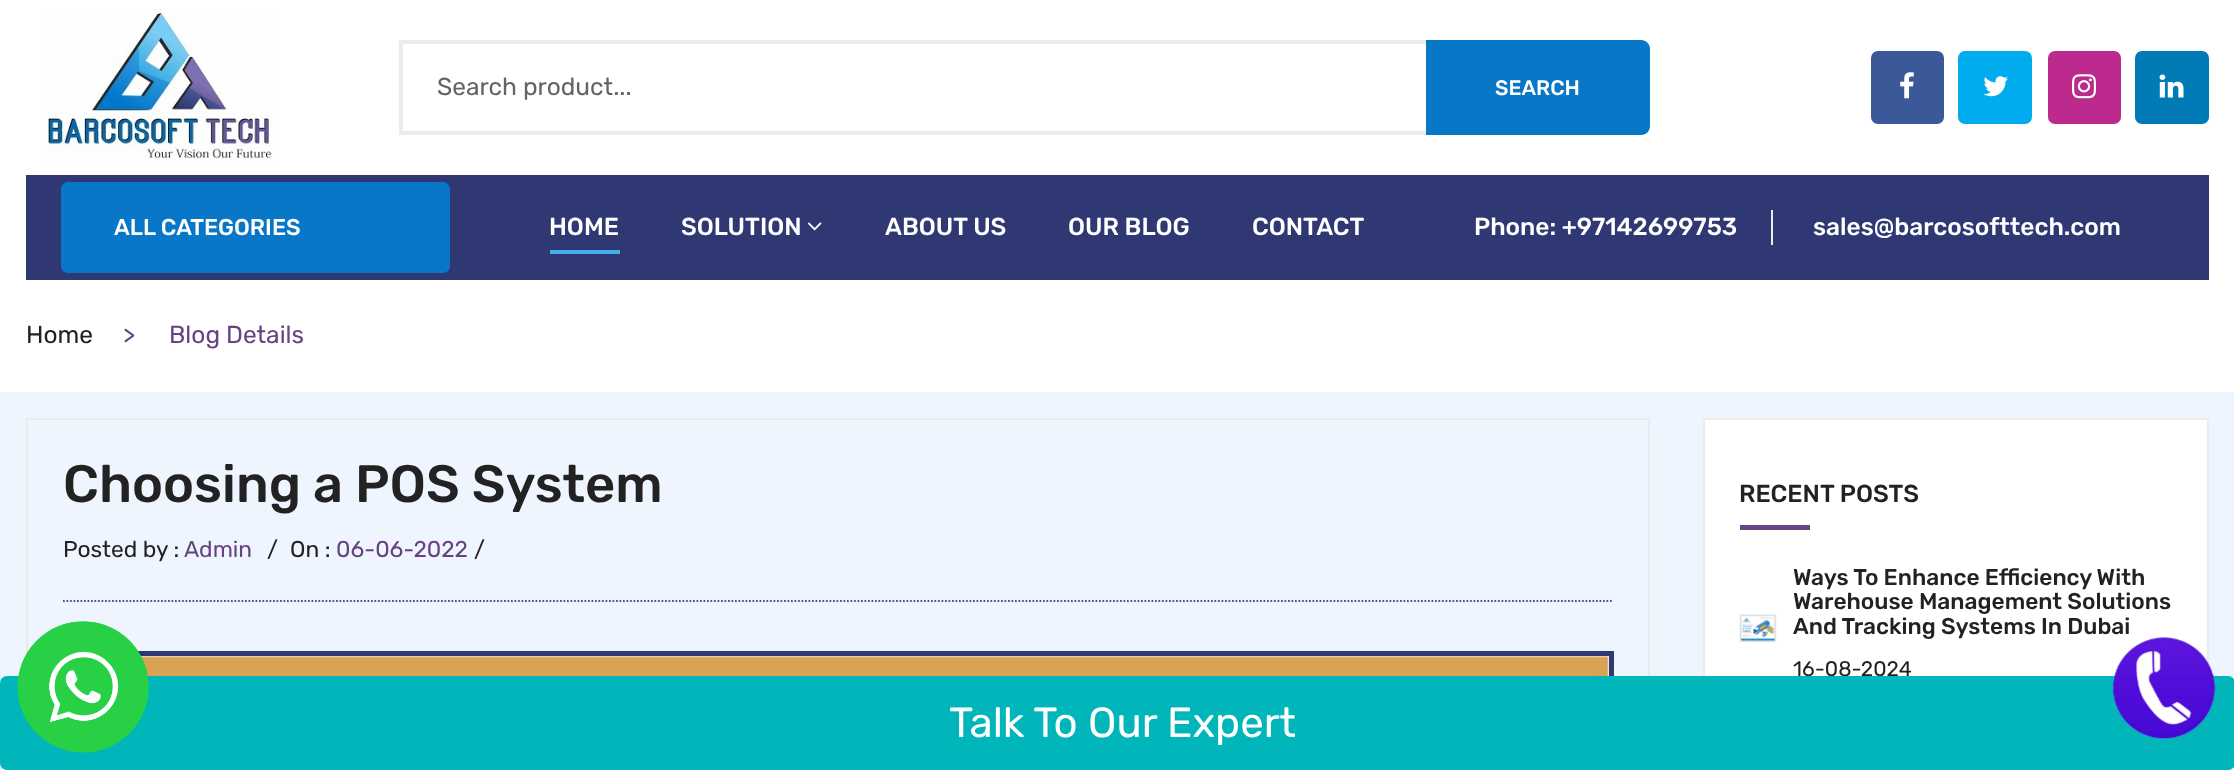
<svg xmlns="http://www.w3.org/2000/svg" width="2234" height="770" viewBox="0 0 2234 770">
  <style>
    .t1 { font: 24.5px Rubik; fill: #646464; }
    .t2 { font: 500 21px Rubik; fill: #fff; }
    .t3 { font: 500 22.75px Rubik; fill: #fff; }
    .t4 { font: 500 24.5px Rubik; fill: #fff; }
    .t5 { font: 24.5px Rubik; fill: #222; }
    .t6 { font: 24.5px Rubik; fill: #674381; }
    .t7 { font: 500 52.5px Rubik; fill: #222; }
    .t8 { font: 22.75px Rubik; fill: #222; }
    .t9 { font: 22.75px Rubik; fill: #674381; }
    .t10 { font: 500 24.5px Rubik; fill: #222; }
    .t11 { font: 500 22.75px Rubik; fill: #222; }
    .t12 { font: 21px Rubik; fill: #222; }
    .t13 { font: 42px Rubik; fill: #fff; }
  </style>
  <rect width="100%" height="100%" fill="#fff"/>
  <image x="40" y="9" width="238" height="159" href="images/1.png"/>
  <path d="M401 42H1641C1645 42 1648 45 1648 49V126C1648 130 1645 133 1641 133H401Z" fill="none" stroke="#ebebeb" stroke-width="4"/>
  <text x="437" y="95" class="t1">Search product...</text>
  <path d="M1426 40H1641C1646 40 1650 44 1650 49V126C1650 131 1646 135 1641 135H1426Z" fill="#0877c8"/>
  <text x="1495" y="95" class="t2">SEARCH</text>
  <rect x="1871" y="51" width="73" height="73" rx="7" fill="#3b5998"/>
  <image x="1900" y="72" width="14" height="27" href="images/2.png"/>
  <rect x="1958" y="51" width="74" height="73" rx="7" fill="#00aced"/>
  <image x="1983" y="76" width="25" height="21" href="images/3.png"/>
  <rect x="2048" y="51" width="73" height="73" rx="7" fill="#bc2a8d"/>
  <image x="2072" y="74" width="24" height="25" href="images/4.png"/>
  <rect x="2135" y="51" width="74" height="73" rx="7" fill="#007bb6"/>
  <image x="2159" y="74" width="25" height="24" href="images/5.png"/>
  <rect x="26" y="175" width="2183" height="105" fill="#2f3873"/>
  <rect x="61" y="182" width="389" height="91" rx="7" fill="#0877c8"/>
  <text x="114" y="235" class="t3">ALL CATEGORIES</text>
  <text x="549" y="235" class="t4">HOME</text>
  <rect x="550" y="250" width="70" height="4" fill="#42aeec"/>
  <text x="681" y="235" class="t4">SOLUTION</text>
  <image x="807" y="222" width="15" height="9" href="images/6.png"/>
  <text x="885" y="235" class="t4">ABOUT US</text>
  <text x="1068" y="235" class="t4">OUR BLOG</text>
  <text x="1252" y="235" class="t4">CONTACT</text>
  <text x="1474" y="235" class="t4">Phone: +97142699753</text>
  <rect x="1771" y="210" width="2" height="35" fill="#ebebeb"/>
  <text x="1813" y="235" class="t4">sales@barcosofttech.com</text>
  <text x="26" y="343" class="t5">Home</text>
  <text x="123" y="343" class="t6">&gt;</text>
  <text x="169" y="343" class="t6">Blog Details</text>
  <rect x="0" y="392" width="2234" height="378" fill="#eff5ff"/>
  <rect x="27" y="419" width="1622" height="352" fill="none" stroke="#ebebeb" stroke-width="2"/>
  <text x="63" y="502" class="t7">Choosing a POS System</text>
  <path d="M63 601H1613.5" fill="none" stroke="#3f51b5" stroke-width="1.8" stroke-dasharray="1.75 1.75"/>
  <text x="63" y="557" class="t8">Posted by :</text>
  <text x="184" y="557" class="t9">Admin</text>
  <text x="267" y="557" class="t8">/</text>
  <text x="290" y="557" class="t8">On :</text>
  <text x="336" y="557" class="t9">06-06-2022</text>
  <text x="474" y="557" class="t8">/</text>
  <rect x="65.5" y="653.5" width="1546" height="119" fill="none" stroke="#2f3873" stroke-width="5"/>
  <image x="141" y="656" width="1468" height="20" href="images/7.png"/>
  <rect x="1705" y="420" width="502" height="256" fill="#fff"/>
  <rect x="1704" y="419" width="504" height="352" fill="none" stroke="#ebebeb" stroke-width="2"/>
  <text x="1739" y="502" class="t10">RECENT POSTS</text>
  <rect x="1740" y="525" width="70" height="5" fill="#674381"/>
  <image x="1739" y="614" width="38" height="29" href="images/8.png"/>
  <text x="1793" y="585" class="t11">Ways To Enhance Efficiency With</text>
  <text x="1793" y="609" class="t11">Warehouse Management Solutions</text>
  <text x="1793" y="634" class="t11">And Tracking Systems In Dubai</text>
  <text x="1793" y="676" class="t12">16-08-2024</text>
  <rect x="0" y="676" width="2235" height="94" rx="7" fill="#00b6bb"/>
  <image x="17" y="621" width="132" height="132" href="images/9.png"/>
  <text x="949" y="737" class="t13">Talk To Our Expert</text>
  <image x="2112" y="637" width="104" height="103" href="images/10.png"/>
</svg>
